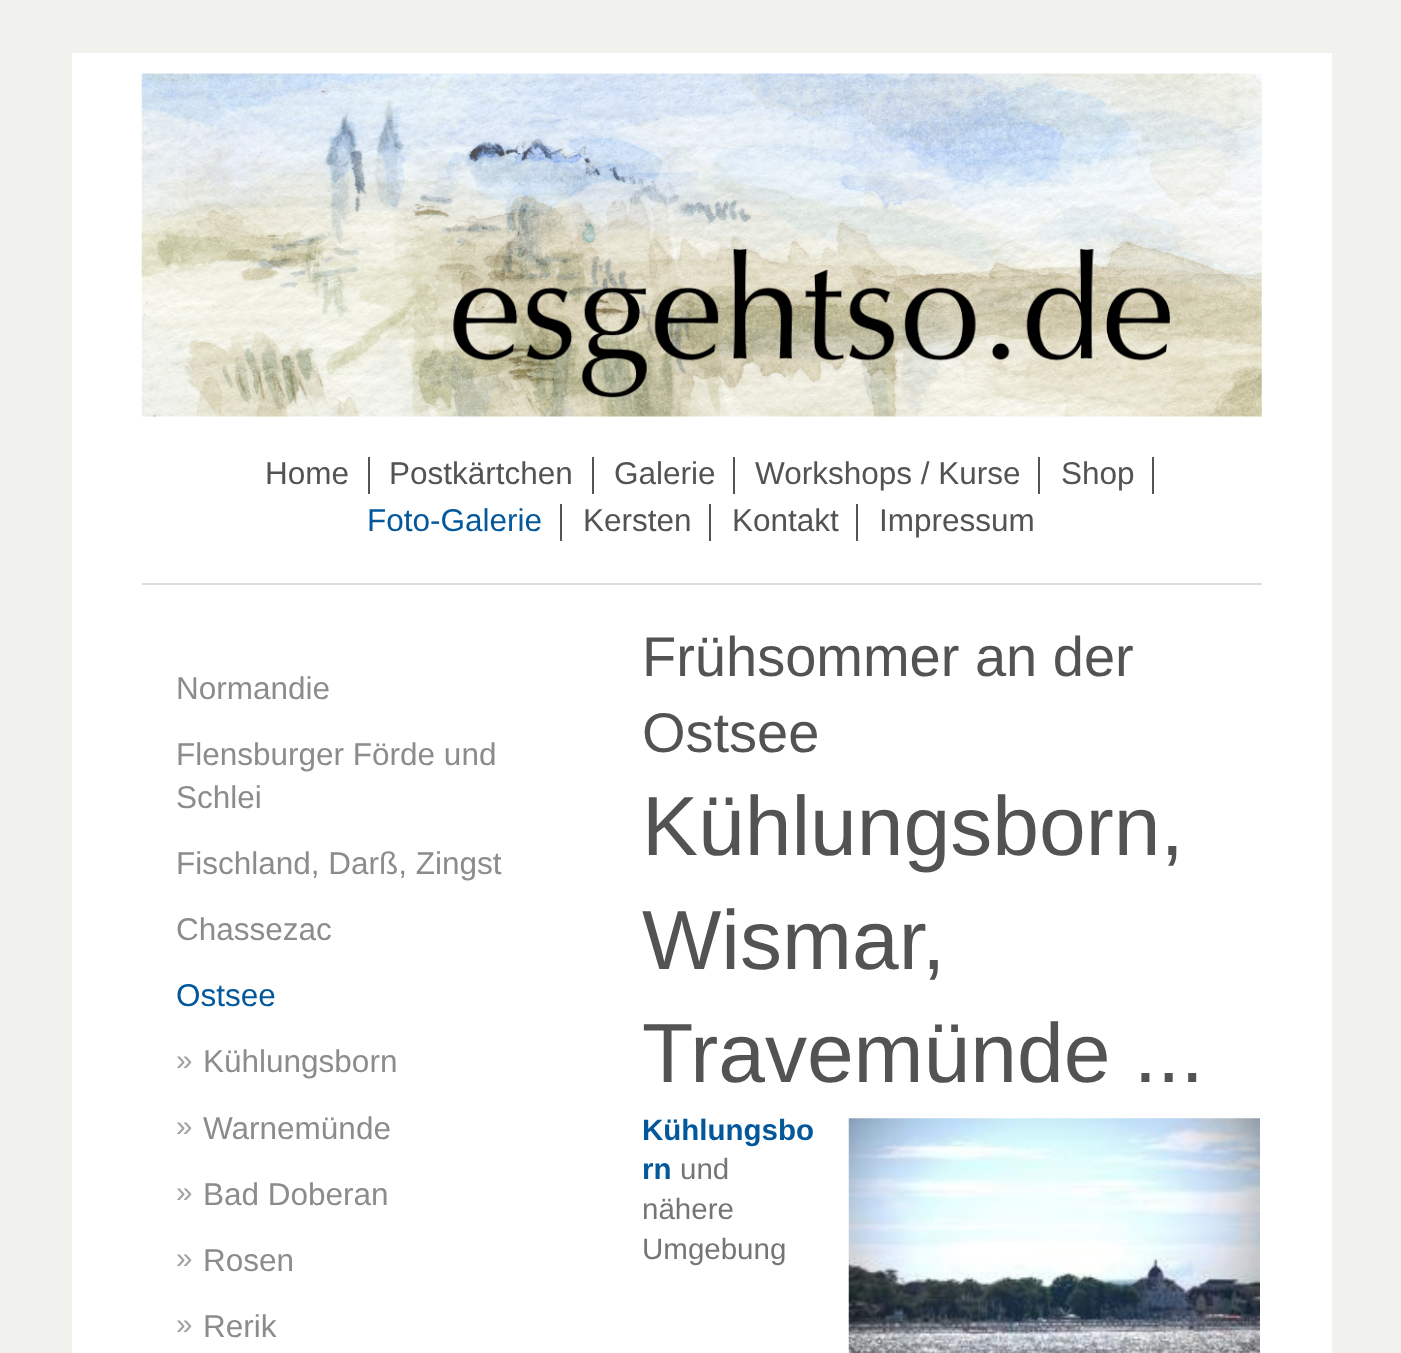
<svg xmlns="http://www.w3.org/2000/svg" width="1401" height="1353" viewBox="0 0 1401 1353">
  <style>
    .t1 { font: 31.5px Liberation Sans; fill: #535353; }
    .t2 { font: 31.5px Liberation Sans; fill: #03579b; }
    .t3 { font: 31.5px Liberation Sans; fill: #8c8c8c; }
    .t4 { font: 29.5px Liberation Sans; fill: #a3a3a3; }
    .t5 { font: 56px Liberation Sans; fill: #535353; }
    .t6 { font: 84px Liberation Sans; fill: #535353; }
    .t7 { font: bold 29.5px Liberation Sans; fill: #03579b; }
    .t8 { font: 29.5px Liberation Sans; fill: #757575; }
  </style>
  <rect width="100%" height="100%" fill="#f1f1ed"/>
  <rect x="72" y="53" width="1260" height="1300" fill="#fff"/>
  <image x="141" y="73" width="1121" height="344" href="images/1.png"/>
  <rect x="142" y="583" width="1120" height="2" fill="#ddd"/>
  <rect x="368" y="457" width="2" height="37" fill="#535353"/>
  <text x="265" y="484" class="t1">Home</text>
  <rect x="592" y="457" width="2" height="37" fill="#535353"/>
  <text x="389" y="484" class="t1">Postkärtchen</text>
  <rect x="733" y="457" width="2" height="37" fill="#535353"/>
  <text x="614" y="484" class="t1">Galerie</text>
  <rect x="1038" y="457" width="2" height="37" fill="#535353"/>
  <text x="755" y="484" class="t1">Workshops / Kurse</text>
  <rect x="1152" y="457" width="2" height="37" fill="#535353"/>
  <text x="1061" y="484" class="t1">Shop</text>
  <rect x="560" y="504" width="2" height="37" fill="#535353"/>
  <text x="367" y="531" class="t2">Foto-Galerie</text>
  <rect x="709" y="504" width="2" height="37" fill="#535353"/>
  <text x="583" y="531" class="t1">Kersten</text>
  <rect x="856" y="504" width="2" height="37" fill="#535353"/>
  <text x="732" y="531" class="t1">Kontakt</text>
  <text x="879" y="531" class="t1">Impressum</text>
  <text x="176" y="699" class="t3">Normandie</text>
  <text x="176" y="765" class="t3">Flensburger Förde und</text>
  <text x="176" y="808" class="t3">Schlei</text>
  <text x="176" y="874" class="t3">Fischland, Darß, Zingst</text>
  <text x="176" y="940" class="t3">Chassezac</text>
  <text x="176" y="1006" class="t2">Ostsee</text>
  <text x="176" y="1070" class="t4">»</text>
  <text x="203" y="1072" class="t3">Kühlungsborn</text>
  <text x="176" y="1136" class="t4">»</text>
  <text x="203" y="1139" class="t3">Warnemünde</text>
  <text x="176" y="1202" class="t4">»</text>
  <text x="203" y="1205" class="t3">Bad Doberan</text>
  <text x="176" y="1268" class="t4">»</text>
  <text x="203" y="1271" class="t3">Rosen</text>
  <text x="176" y="1334" class="t4">»</text>
  <text x="203" y="1337" class="t3">Rerik</text>
  <text x="642" y="676" class="t5">Frühsommer an der</text>
  <text x="642" y="752" class="t5">Ostsee</text>
  <text x="642" y="855" class="t6">Kühlungsborn,</text>
  <text x="642" y="969" class="t6">Wismar,</text>
  <text x="642" y="1082" class="t6">Travemünde ...</text>
  <text x="642" y="1140" class="t7">Kühlungsbo</text>
  <text x="642" y="1179" class="t7">rn</text>
  <text x="680" y="1179" class="t8">und</text>
  <text x="642" y="1219" class="t8">nähere</text>
  <text x="642" y="1259" class="t8">Umgebung</text>
  <image x="848" y="1118" width="412" height="235" href="images/2.png"/>
</svg>
